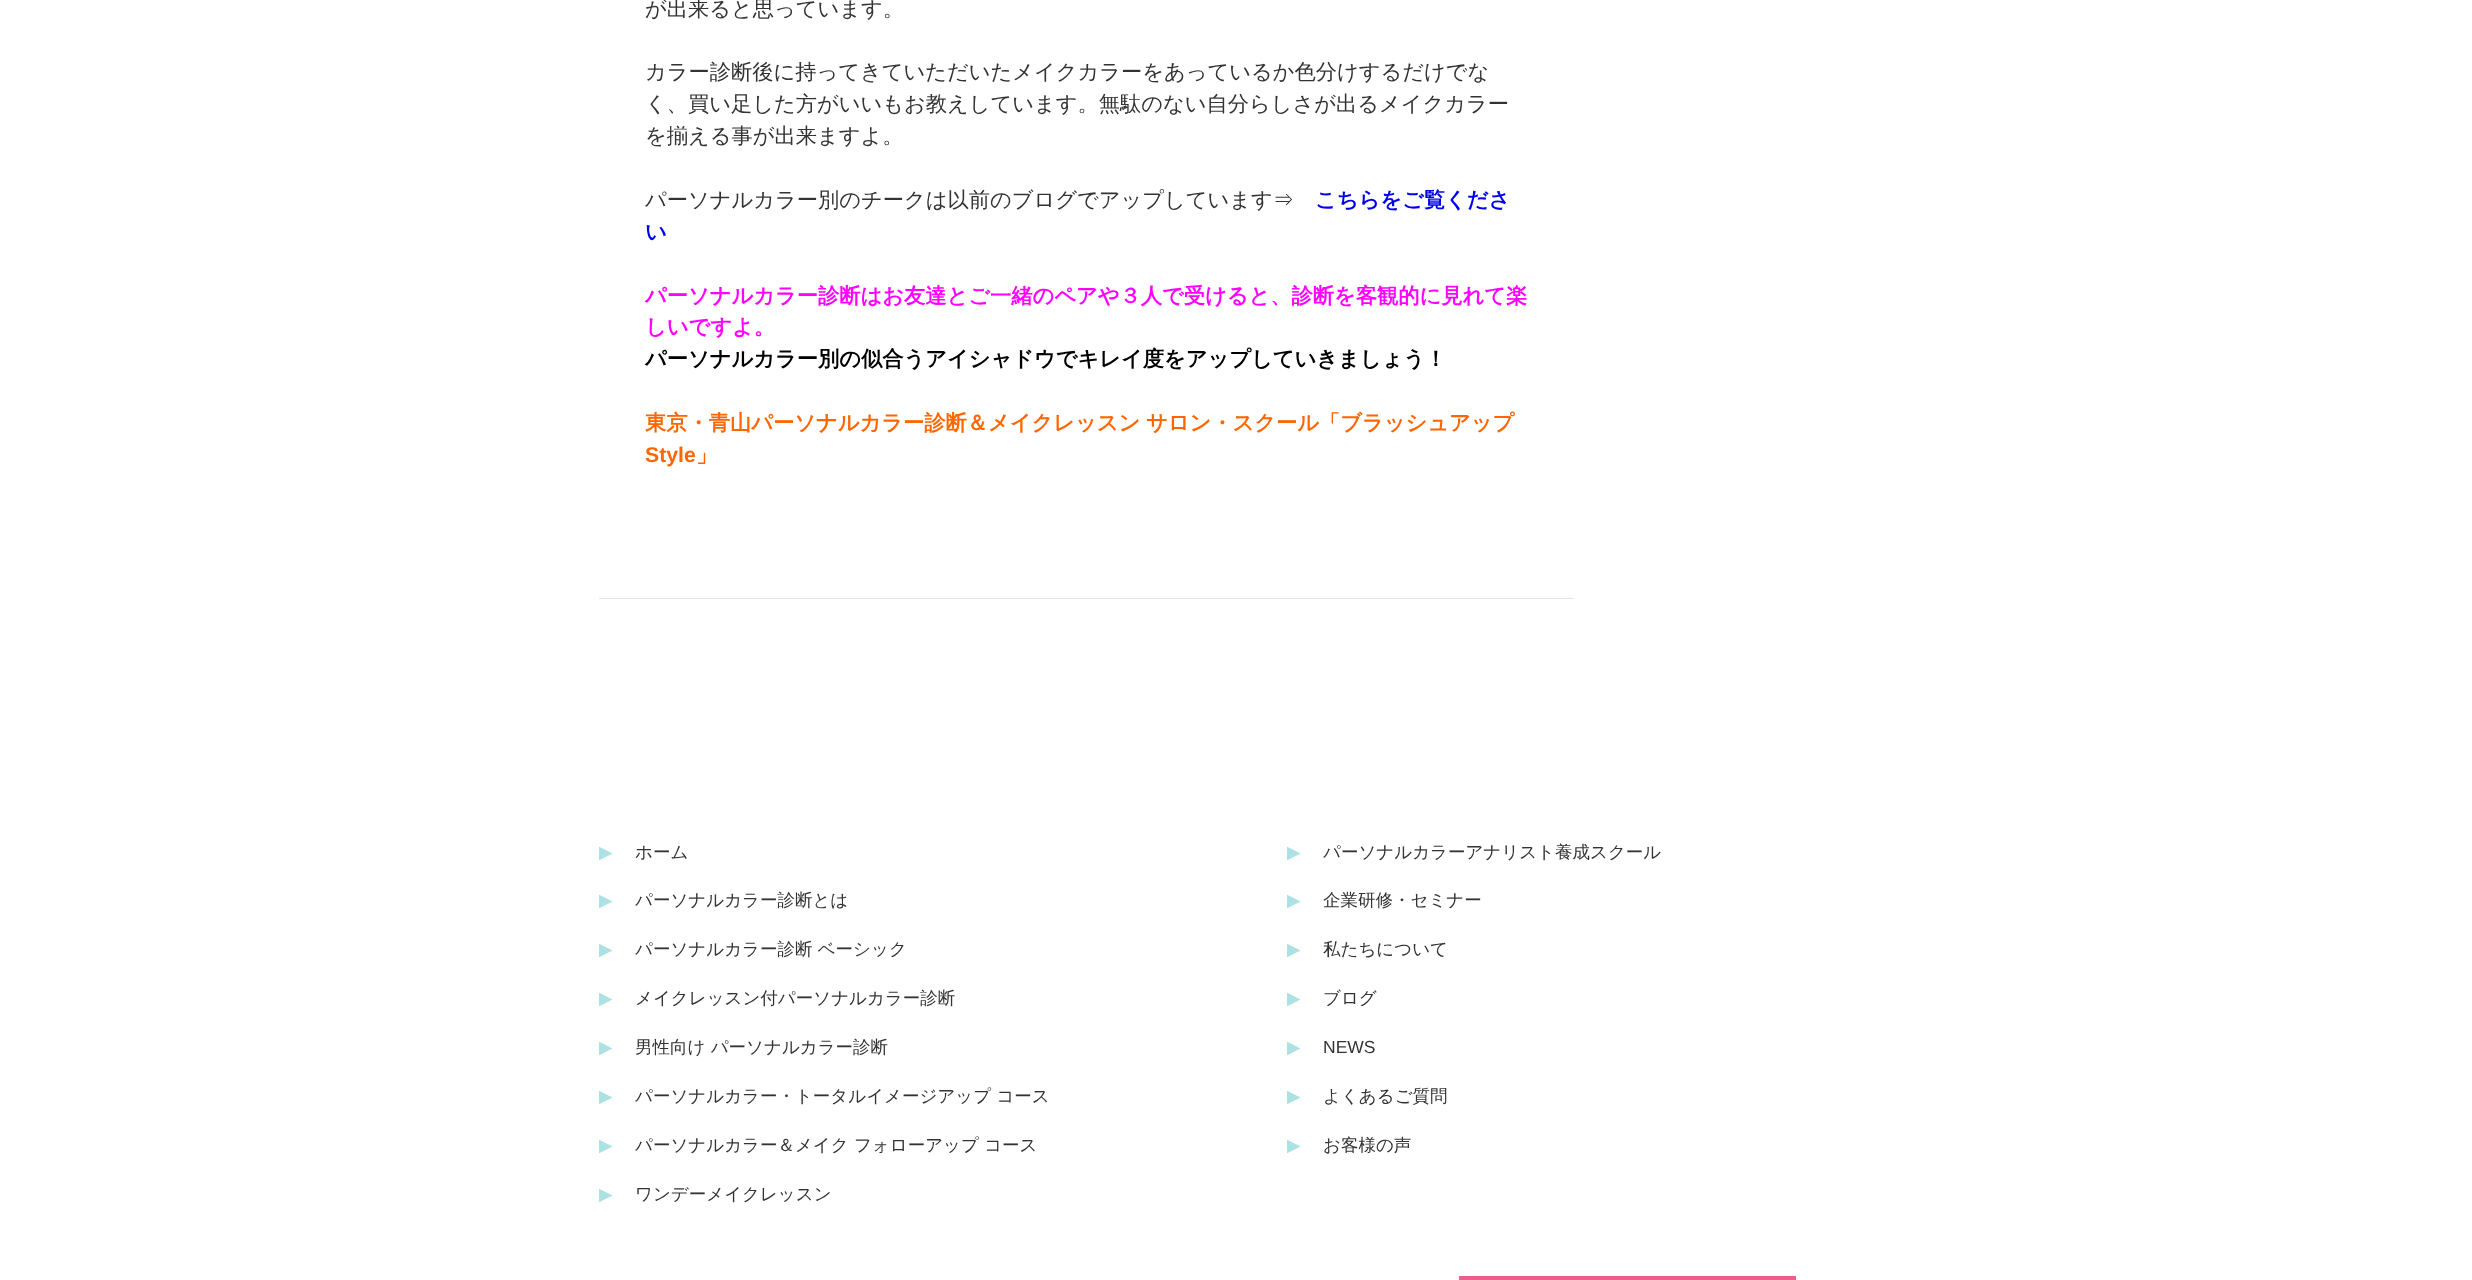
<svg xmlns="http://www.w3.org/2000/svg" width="2472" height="1280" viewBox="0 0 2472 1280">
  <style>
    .t1 { font: 500 21.25px WenQuanYi Zen Hei; fill: #333; }
    .t2 { font: bold 21.25px WenQuanYi Zen Hei; fill: #00e; }
    .t3 { font: bold 21.25px WenQuanYi Zen Hei; fill: #f0f; }
    .t4 { font: bold 21.25px WenQuanYi Zen Hei; fill: #000; }
    .t5 { font: bold 21.25px WenQuanYi Zen Hei; fill: #f60; }
    .t6 { font: bold 21.25px Liberation Sans; fill: #f60; }
    .t7 { font: 17.5px DejaVu Sans; fill: #ace1e3; }
    .t8 { font: 500 17.5px WenQuanYi Zen Hei; fill: #333; }
    .t9 { font: 17.5px Liberation Sans; fill: #333; }
  </style>
  <rect width="100%" height="100%" fill="#fff"/>
  <rect x="599" y="598" width="975" height="1" fill="#e6e4e1"/>
  <text x="645" y="16" class="t1">が出来ると思っています。</text>
  <text x="645" y="79" class="t1">カラー診断後に持ってきていただいたメイクカラーをあっているか色分けするだけでな</text>
  <text x="645" y="111" class="t1">く、買い足した方がいいもお教えしています。無駄のない自分らしさが出るメイクカラー</text>
  <text x="645" y="143" class="t1">を揃える事が出来ますよ。</text>
  <text x="645" y="207" class="t1">パーソナルカラー別のチークは以前のブログでアップしています⇒</text>
  <text x="1315" y="207" class="t2">こちらをご覧くださ</text>
  <text x="645" y="239" class="t2">い</text>
  <text x="645" y="303" class="t3">パーソナルカラー診断はお友達とご一緒のペアや３人で受けると、診断を客観的に見れて楽</text>
  <text x="645" y="334" class="t3">しいですよ。</text>
  <text x="645" y="366" class="t4">パーソナルカラー別の似合うアイシャドウでキレイ度をアップしていきましょう！</text>
  <text x="645" y="430" class="t5">東京・青山パーソナルカラー診断＆メイクレッスン</text>
  <text x="1146" y="430" class="t5">サロン・スクール「ブラッシュアップ</text>
  <text x="645" y="462" class="t6">Style</text>
  <text x="696" y="462" class="t5">」</text>
  <text x="599" y="858" class="t7">▶</text>
  <text x="635" y="858" class="t8">ホーム</text>
  <text x="1287" y="858" class="t7">▶</text>
  <text x="1323" y="858" class="t8">パーソナルカラーアナリスト養成スクール</text>
  <text x="599" y="906" class="t7">▶</text>
  <text x="635" y="906" class="t8">パーソナルカラー診断とは</text>
  <text x="1287" y="906" class="t7">▶</text>
  <text x="1323" y="906" class="t8">企業研修・セミナー</text>
  <text x="599" y="955" class="t7">▶</text>
  <text x="635" y="955" class="t8">パーソナルカラー診断 ベーシック</text>
  <text x="1287" y="955" class="t7">▶</text>
  <text x="1323" y="955" class="t8">私たちについて</text>
  <text x="599" y="1004" class="t7">▶</text>
  <text x="635" y="1004" class="t8">メイクレッスン付パーソナルカラー診断</text>
  <text x="1287" y="1004" class="t7">▶</text>
  <text x="1323" y="1004" class="t8">ブログ</text>
  <text x="599" y="1053" class="t7">▶</text>
  <text x="635" y="1053" class="t8">男性向け パーソナルカラー診断</text>
  <text x="1287" y="1053" class="t7">▶</text>
  <text x="1323" y="1053" class="t9">NEWS</text>
  <text x="599" y="1102" class="t7">▶</text>
  <text x="635" y="1102" class="t8">パーソナルカラー・トータルイメージアップ コース</text>
  <text x="1287" y="1102" class="t7">▶</text>
  <text x="1323" y="1102" class="t8">よくあるご質問</text>
  <text x="599" y="1151" class="t7">▶</text>
  <text x="635" y="1151" class="t8">パーソナルカラー＆メイク フォローアップ コース</text>
  <text x="1287" y="1151" class="t7">▶</text>
  <text x="1323" y="1151" class="t8">お客様の声</text>
  <text x="599" y="1200" class="t7">▶</text>
  <text x="635" y="1200" class="t8">ワンデーメイクレッスン</text>
  <rect x="1459" y="1276" width="337" height="4" fill="#ef5d8b"/>
</svg>
